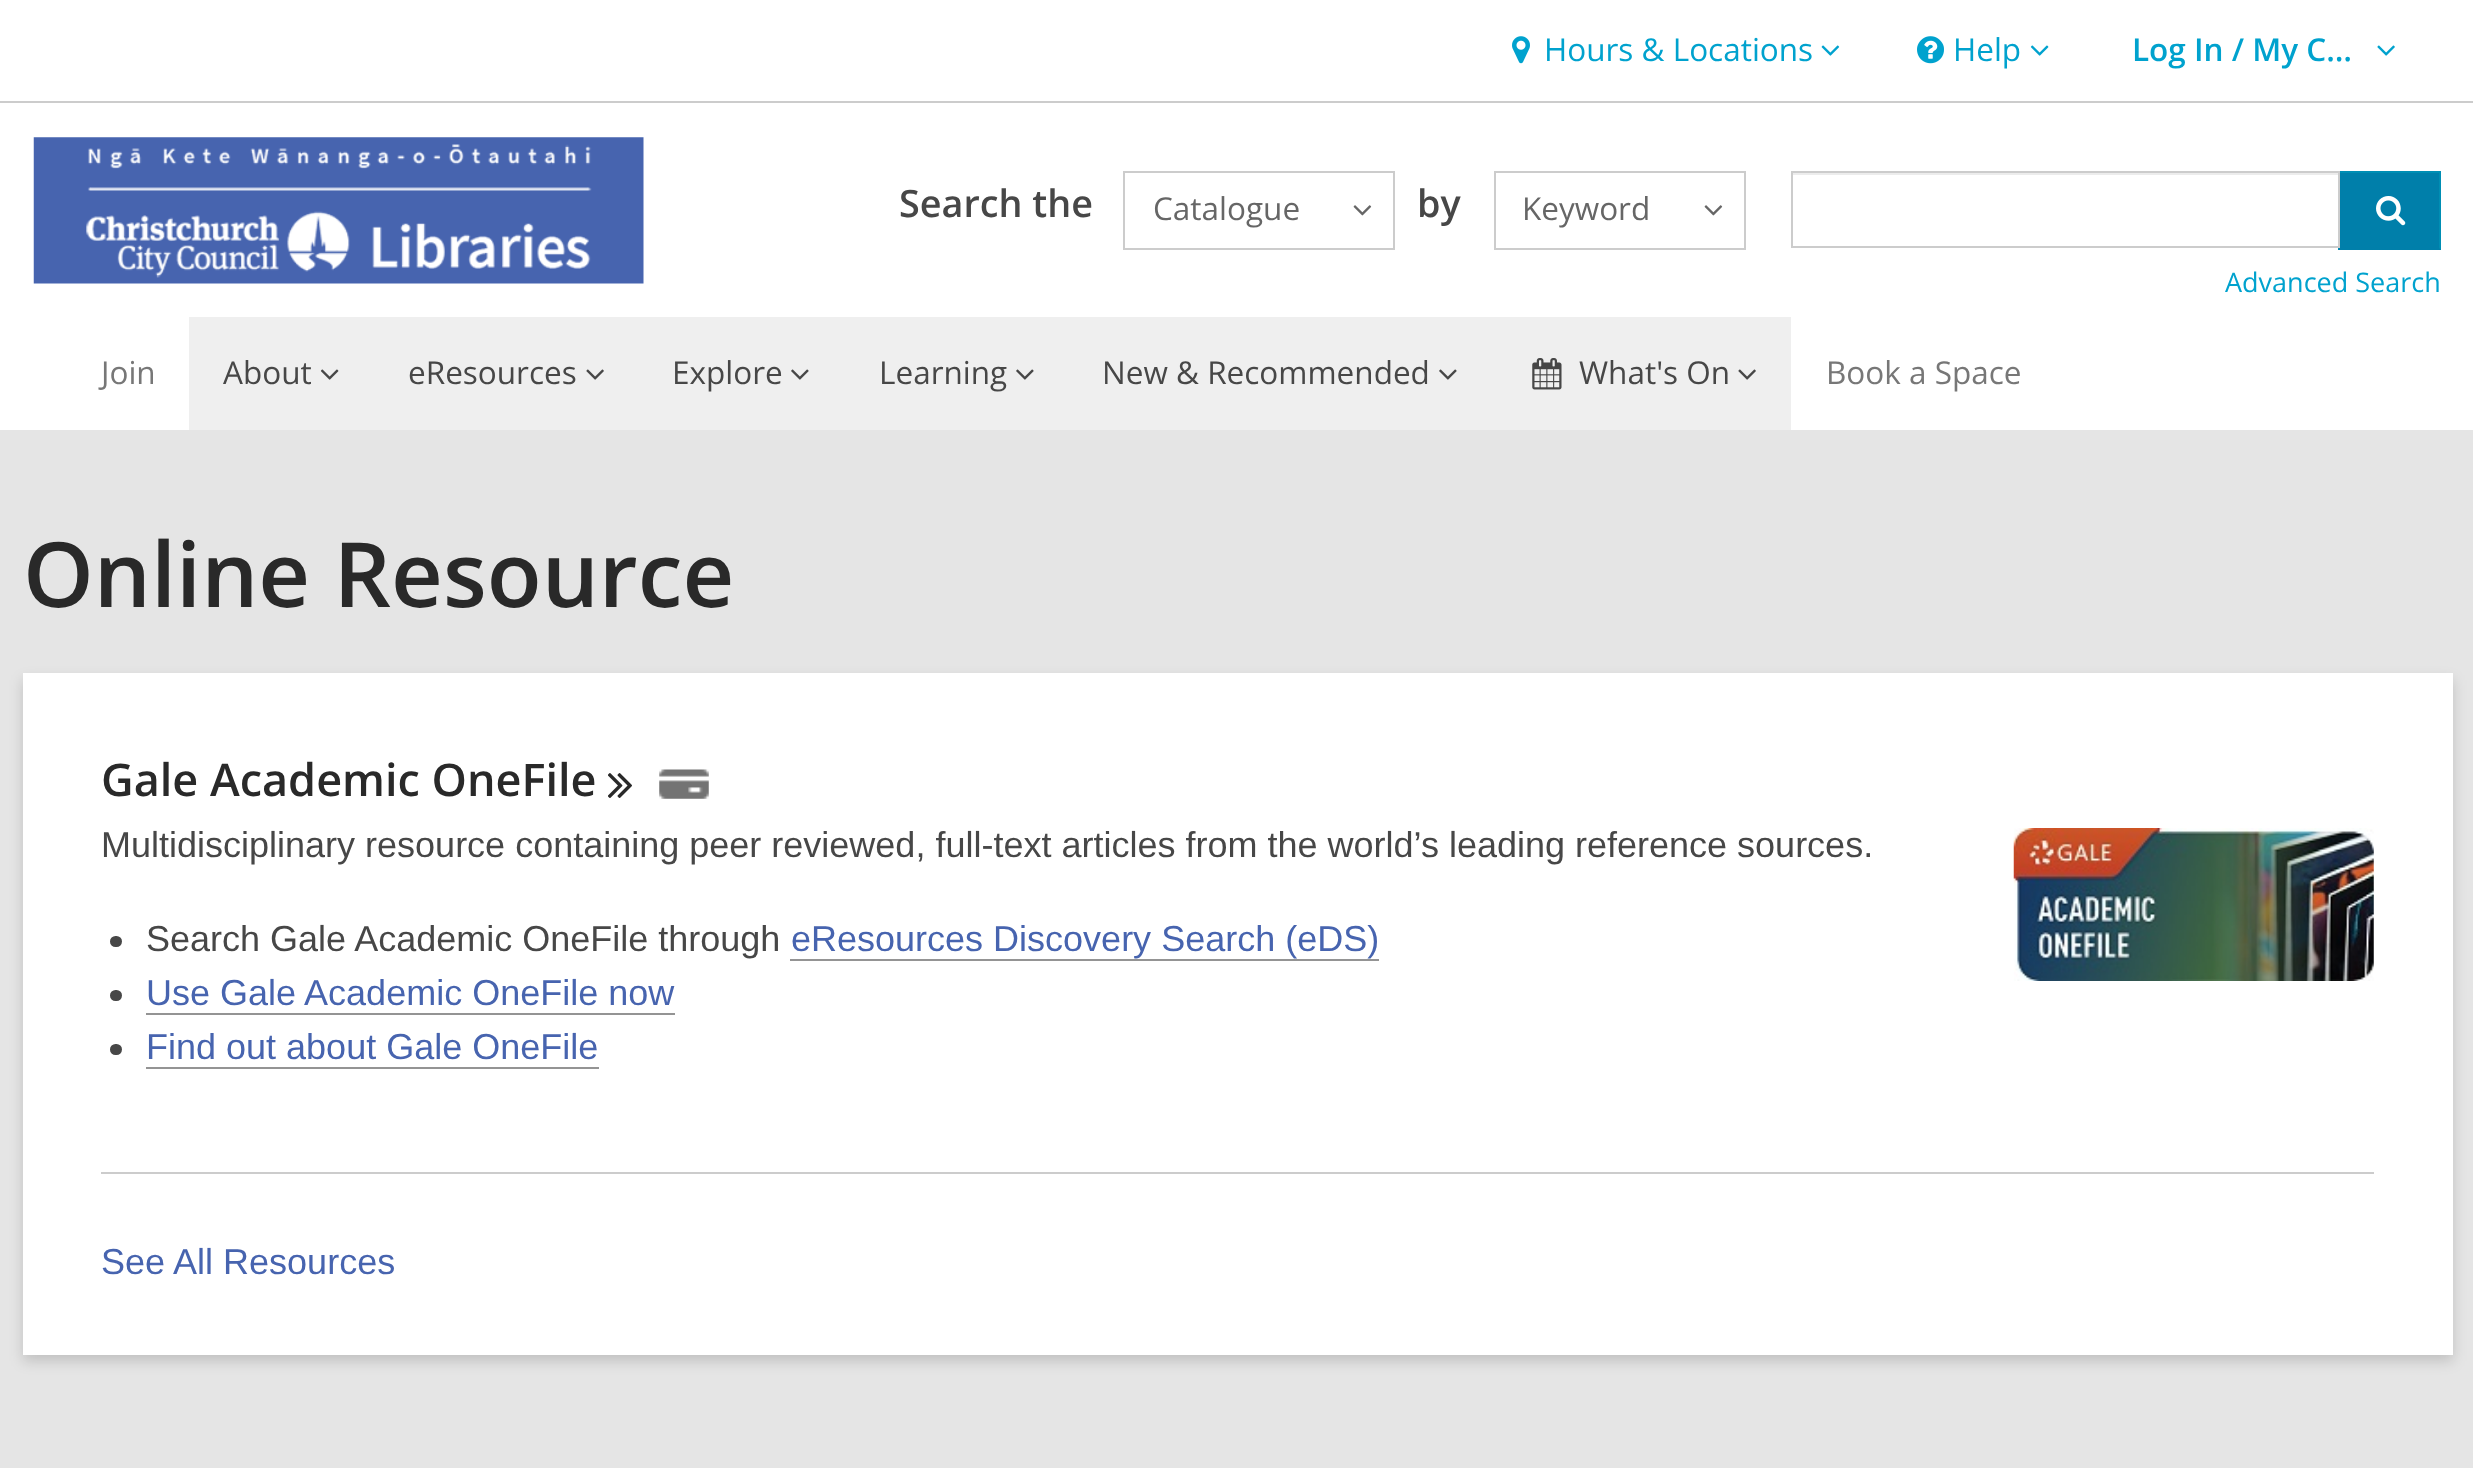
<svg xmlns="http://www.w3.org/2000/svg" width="2473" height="1468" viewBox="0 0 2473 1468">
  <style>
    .t1 { font: 31.5px Open Sans; fill: #00a2ce; }
    .t2 { font: 600 31.5px Open Sans; fill: #00a2ce; }
    .t3 { font: 600 37.75px Open Sans; fill: #474747; }
    .t4 { font: 31.5px Open Sans; fill: #666; }
    .t5 { font: 27px Open Sans; fill: #00a2ce; }
    .t6 { font: 31.5px Open Sans; fill: #777; }
    .t7 { font: 31.5px Open Sans; fill: #474747; }
    .t8 { font: 600 90px Open Sans; fill: #292929; }
    .t9 { font: 600 45px Open Sans; fill: #292929; }
    .t10 { font: 36px Liberation Sans; fill: #474747; }
    .t11 { font: 36px Liberation Sans; fill: #4764af; }
  </style>
  <rect width="100%" height="100%" fill="#e5e5e5"/>
  <rect x="0" y="0" width="2473" height="430" fill="#fff"/>
  <rect x="0" y="101" width="2473" height="2" fill="#ccc"/>
  <image x="1512" y="36" width="18" height="28" href="images/1.png"/>
  <text x="1544" y="61" class="t1">Hours &amp; Locations</text>
  <image x="1821" y="45" width="19" height="11" href="images/2.png"/>
  <image x="1917" y="36" width="27" height="28" href="images/3.png"/>
  <text x="1953" y="61" class="t1">Help</text>
  <image x="2030" y="45" width="19" height="11" href="images/4.png"/>
  <text x="2132" y="61" class="t2">Log In / My C…</text>
  <image x="2377" y="45" width="18" height="11" href="images/5.png"/>
  <image x="33" y="137" width="611" height="147" href="images/6.png"/>
  <text x="899" y="217" class="t3">Search the</text>
  <rect x="1124" y="172" width="270" height="77" fill="none" stroke="#ccc" stroke-width="2"/>
  <text x="1153" y="220" class="t4">Catalogue</text>
  <image x="1353" y="205" width="19" height="11" href="images/7.png"/>
  <text x="1417" y="217" class="t3">by</text>
  <rect x="1495" y="172" width="250" height="77" fill="none" stroke="#ccc" stroke-width="2"/>
  <text x="1522" y="220" class="t4">Keyword</text>
  <image x="1704" y="205" width="19" height="11" href="images/7.png"/>
  <rect x="1793" y="173" width="545" height="2" fill="#ececec"/>
  <rect x="2338" y="173" width="103" height="77" fill="#007faa"/>
  <rect x="2338" y="171" width="103" height="2" fill="#008eb4"/>
  <path d="M2338 250V171L2340 173V248Z" fill="#008eb4"/>
  <rect x="1792" y="172" width="547" height="75" fill="none" stroke="#ccc" stroke-width="2"/>
  <path d="M2441 171V250L2439 248V173Z" fill="#008eb4"/>
  <image x="2376" y="196" width="30" height="30" href="images/8.png"/>
  <text x="2225" y="292" class="t5">Advanced Search</text>
  <text x="101" y="384" class="t6">Join</text>
  <rect x="189" y="317" width="1602" height="113" fill="#efefef"/>
  <text x="223" y="384" class="t7">About</text>
  <image x="320" y="369" width="19" height="11" href="images/9.png"/>
  <text x="408" y="384" class="t7">eResources</text>
  <image x="586" y="369" width="18" height="11" href="images/10.png"/>
  <text x="672" y="384" class="t7">Explore</text>
  <image x="791" y="369" width="18" height="11" href="images/11.png"/>
  <text x="879" y="384" class="t7">Learning</text>
  <image x="1016" y="369" width="18" height="11" href="images/11.png"/>
  <text x="1102" y="384" class="t7">New &amp; Recommended</text>
  <image x="1439" y="369" width="18" height="11" href="images/11.png"/>
  <image x="1532" y="358" width="30" height="32" href="images/12.png"/>
  <text x="1579" y="384" class="t7">What's On</text>
  <image x="1738" y="369" width="18" height="11" href="images/10.png"/>
  <text x="1826" y="384" class="t6">Book a Space</text>
  <text x="23" y="607" class="t8">Online Resource</text>
  <rect x="23" y="680" width="2430" height="681" fill="#00000029" filter="blur(7px)"/>
  <rect x="23" y="673" width="2430" height="682" fill="#fff"/>
  <rect x="101" y="1172" width="2273" height="2" fill="#ccc"/>
  <text x="101" y="796" class="t9">Gale Academic OneFile</text>
  <image x="608" y="773" width="24" height="25" href="images/13.png"/>
  <image x="659" y="769" width="50" height="30" href="images/14.png"/>
  <text x="101" y="857" class="t10">Multidisciplinary resource containing peer reviewed, full-text articles from the world’s leading reference sources.</text>
  <image x="2013" y="828" width="361" height="153" href="images/15.png"/>
  <rect x="110" y="936" width="12" height="11" rx="5.5" fill="#474747"/>
  <text x="146" y="951" class="t10">Search Gale Academic OneFile through</text>
  <text x="791" y="951" class="t11">eResources Discovery Search (eDS)</text>
  <rect x="790" y="959" width="589" height="2" fill="#949494"/>
  <rect x="110" y="990" width="12" height="11" rx="5.5" fill="#474747"/>
  <text x="146" y="1005" class="t11">Use Gale Academic OneFile now</text>
  <rect x="146" y="1013" width="529" height="2" fill="#949494"/>
  <rect x="110" y="1044" width="12" height="11" rx="5.5" fill="#474747"/>
  <text x="146" y="1059" class="t11">Find out about Gale OneFile</text>
  <rect x="146" y="1067" width="453" height="2" fill="#949494"/>
  <text x="101" y="1274" class="t11">See All Resources</text>
</svg>
